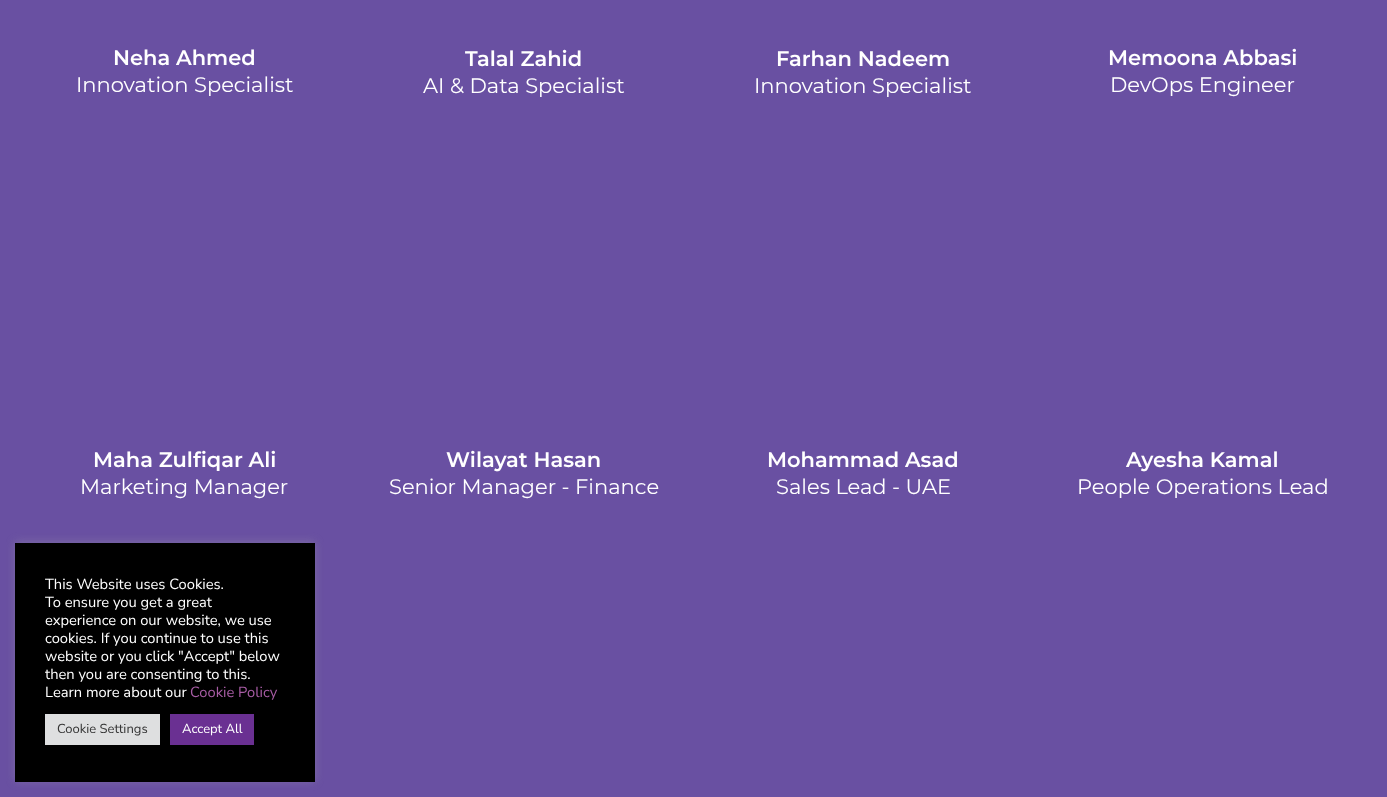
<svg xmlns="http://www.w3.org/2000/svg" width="1387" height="797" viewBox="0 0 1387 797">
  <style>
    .t1 { font: 600 21px Montserrat; fill: #fff; }
    .t2 { font: 21px Montserrat; fill: #fff; }
    .t3 { font: 14.7px Nunito Sans; fill: #fff; }
    .t4 { font: 14.7px Nunito Sans; fill: #a75ca4; }
    .t5 { font: 13px Nunito Sans; fill: #333; }
    .t6 { font: 13px Nunito Sans; fill: #fff; }
  </style>
  <rect width="100%" height="100%" fill="#6950a2"/>
  <text x="113" y="65" class="t1">Neha Ahmed</text>
  <text x="76" y="92" class="t2">Innovation Specialist</text>
  <text x="465" y="66" class="t1">Talal Zahid</text>
  <text x="423" y="93" class="t2">AI &amp; Data Specialist</text>
  <text x="776" y="66" class="t1">Farhan Nadeem</text>
  <text x="754" y="93" class="t2">Innovation Specialist</text>
  <text x="1108" y="65" class="t1">Memoona Abbasi</text>
  <text x="1110" y="92" class="t2">DevOps Engineer</text>
  <text x="93" y="467" class="t1">Maha Zulfiqar Ali</text>
  <text x="80" y="494" class="t2">Marketing Manager</text>
  <text x="446" y="467" class="t1">Wilayat Hasan</text>
  <text x="389" y="494" class="t2">Senior Manager - Finance</text>
  <text x="767" y="467" class="t1">Mohammad Asad</text>
  <text x="776" y="494" class="t2">Sales Lead - UAE</text>
  <text x="1126" y="467" class="t1">Ayesha Kamal</text>
  <text x="1077" y="494" class="t2">People Operations Lead</text>
  <rect x="15" y="542" width="300" height="239" fill="#acabab4d" filter="blur(5px)"/>
  <rect x="15" y="543" width="300" height="239" fill="#000"/>
  <text x="45" y="589" class="t3">This Website uses Cookies.</text>
  <text x="45" y="607" class="t3">To ensure you get a great</text>
  <text x="45" y="625" class="t3">experience on our website, we use</text>
  <text x="45" y="643" class="t3">cookies. If you continue to use this</text>
  <text x="45" y="661" class="t3">website or you click "Accept" below</text>
  <text x="45" y="679" class="t3">then you are consenting to this.</text>
  <text x="45" y="697" class="t3">Learn more about our</text>
  <text x="190" y="697" class="t4">Cookie Policy</text>
  <rect x="45" y="714" width="115" height="31" fill="#dedfe0"/>
  <text x="57" y="733" class="t5">Cookie Settings</text>
  <rect x="170" y="714" width="84" height="31" fill="#6a3092"/>
  <text x="182" y="733" class="t6">Accept All</text>
</svg>
